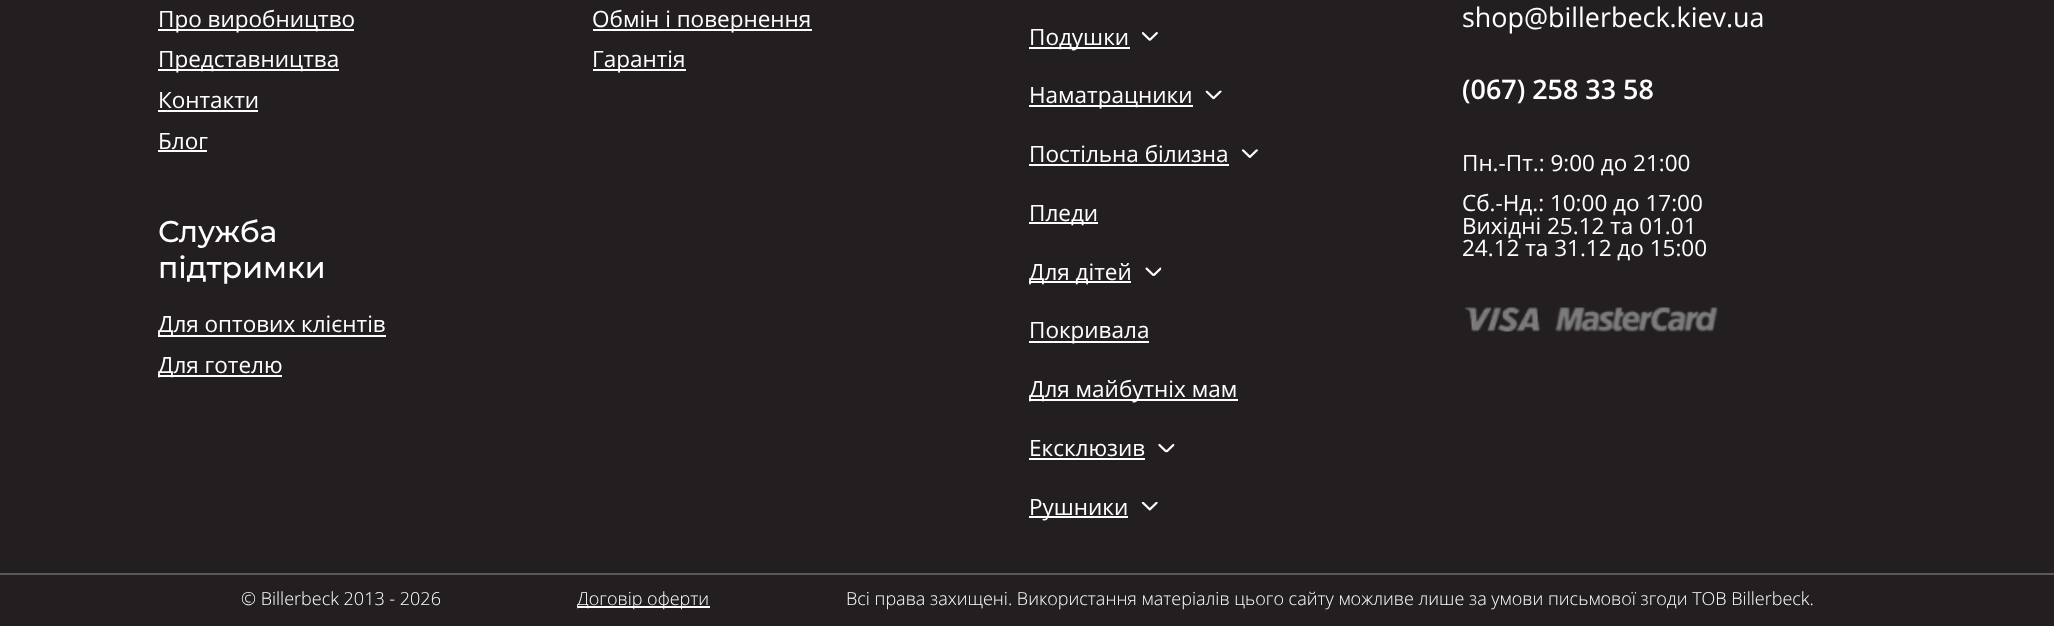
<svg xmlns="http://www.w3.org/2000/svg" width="2054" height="626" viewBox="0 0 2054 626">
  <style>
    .t1 { font: 22.5px Open Sans; fill: #fff; }
    .t2 { font: 500 30px Montserrat; fill: #fff; }
    .t3 { font: 26.9px Open Sans; fill: #fff; }
    .t4 { font: 600 26.9px Open Sans; fill: #fff; }
    .t5 { font: 300 18px Open Sans; fill: #fff; }
  </style>
  <defs>
    <clipPath id="clip1"><rect x="158" y="311" width="289" height="81"/></clipPath>
  </defs>
  <rect width="100%" height="100%" fill="#231f20"/>
  <rect x="158" y="29" width="196" height="2" fill="#fff"/>
  <text x="158" y="27" class="t1">Про виробництво</text>
  <rect x="158" y="69" width="181" height="2" fill="#fff"/>
  <text x="158" y="67" class="t1">Представництва</text>
  <text x="158" y="108" class="t1">Контакти</text>
  <rect x="158" y="110" width="100" height="2" fill="#fff"/>
  <text x="158" y="149" class="t1">Блог</text>
  <rect x="158" y="150" width="49" height="2" fill="#fff"/>
  <text x="158" y="242" class="t2">Служба</text>
  <text x="158" y="278" class="t2">підтримки</text>
  <rect x="158" y="335" width="228" height="2" fill="#fff"/>
  <g clip-path="url(#clip1)">
    <text x="158" y="332" class="t1">Для оптових клієнтів</text>
  </g>
  <rect x="158" y="375" width="124" height="2" fill="#fff"/>
  <g clip-path="url(#clip1)">
    <text x="158" y="373" class="t1">Для готелю</text>
  </g>
  <rect x="593" y="29" width="219" height="2" fill="#fff"/>
  <text x="592" y="27" class="t1">Обмін і повернення</text>
  <rect x="593" y="69" width="93" height="2" fill="#fff"/>
  <text x="592" y="67" class="t1">Гарантія</text>
  <rect x="1029" y="47" width="101" height="2" fill="#fff"/>
  <text x="1029" y="45" class="t1">Подушки</text>
  <image x="1142" y="32" width="16" height="9" href="images/1.png"/>
  <rect x="1029" y="105" width="164" height="2" fill="#fff"/>
  <text x="1029" y="103" class="t1">Наматрацники</text>
  <image x="1205" y="90" width="17" height="10" href="images/2.png"/>
  <text x="1029" y="162" class="t1">Постільна білизна</text>
  <rect x="1029" y="164" width="200" height="2" fill="#fff"/>
  <image x="1241" y="149" width="17" height="9" href="images/3.png"/>
  <rect x="1029" y="222" width="69" height="2" fill="#fff"/>
  <text x="1029" y="221" class="t1">Пледи</text>
  <rect x="1029" y="281" width="102" height="2" fill="#fff"/>
  <text x="1029" y="280" class="t1">Для дітей</text>
  <image x="1145" y="267" width="17" height="9" href="images/4.png"/>
  <rect x="1029" y="341" width="120" height="2" fill="#fff"/>
  <text x="1029" y="338" class="t1">Покривала</text>
  <rect x="1029" y="399" width="209" height="2" fill="#fff"/>
  <text x="1029" y="397" class="t1">Для майбутніх мам</text>
  <text x="1029" y="456" class="t1">Ексклюзив</text>
  <rect x="1029" y="458" width="116" height="2" fill="#fff"/>
  <image x="1158" y="443" width="17" height="10" href="images/5.png"/>
  <rect x="1029" y="516" width="99" height="2" fill="#fff"/>
  <text x="1029" y="515" class="t1">Рушники</text>
  <image x="1141" y="502" width="17" height="9" href="images/6.png"/>
  <text x="1462" y="27" class="t3">shop@billerbeck.kiev.ua</text>
  <text x="1462" y="99" class="t4">(067) 258 33 58</text>
  <text x="1462" y="171" class="t1">Пн.-Пт.: 9:00 до 21:00</text>
  <text x="1462" y="211" class="t1">Сб.-Нд.: 10:00 до 17:00</text>
  <text x="1462" y="234" class="t1">Вихідні 25.12 та 01.01</text>
  <text x="1462" y="256" class="t1">24.12 та 31.12 до 15:00</text>
  <image x="1464" y="307" width="77" height="25" href="images/7.png"/>
  <image x="1555" y="307" width="163" height="25" href="images/8.png"/>
  <rect x="0" y="573" width="2054" height="2" fill="#595959"/>
  <text x="241" y="605" class="t5">© Billerbeck 2013 - 2026</text>
  <rect x="578" y="606" width="132" height="2" fill="#fff"/>
  <text x="577" y="605" class="t5">Договір оферти</text>
  <text x="846" y="605" class="t5">Всі права захищені. Використання матеріалів цього сайту можливе лише за умови письмової згоди ТОВ Billerbeck.</text>
</svg>
